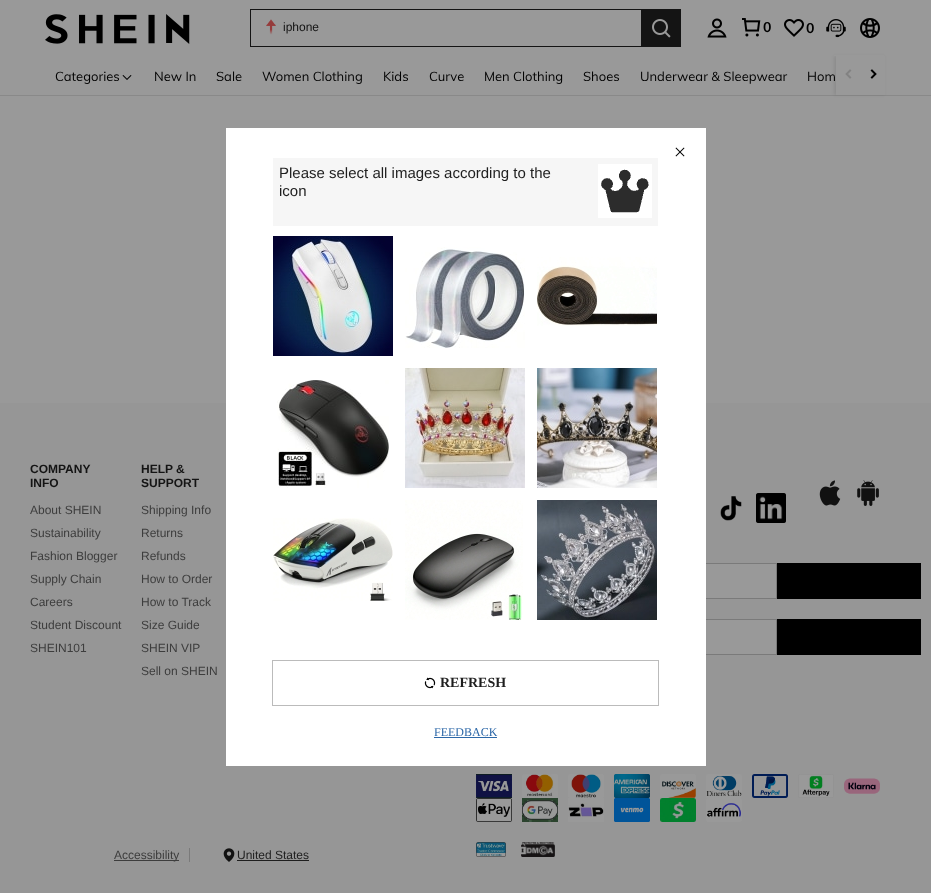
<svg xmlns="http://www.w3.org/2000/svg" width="931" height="893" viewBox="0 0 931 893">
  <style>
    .t1 { font: 12px Liberation Sans; fill: #141414; }
    .t2 { font: bold 14px Muli; fill: #000; }
    .t3 { font: 13px Muli; fill: #000; }
    .t4 { font: bold 12px Liberation Sans; fill: #141414; }
    .t5 { font: 12px Liberation Sans; fill: #3d3d3d; }
    .t6 { font: 12px Liberation Sans; fill: #1e1e1e; }
    .t7 { font: 15px Liberation Sans; fill: #1e1e1e; }
    .t8 { font: bold 14px Liberation Serif; fill: #1e1e1e; }
    .t9 { font: 12px Liberation Serif; fill: #2d68a8; }
  </style>
  <rect width="100%" height="100%" fill="#999"/>
  <rect x="0" y="95" width="931" height="1" fill="#898989"/>
  <rect x="834" y="56" width="50" height="39" fill="#00000014" filter="blur(1.5px)"/>
  <rect x="834" y="55" width="50" height="1" fill="#999"/>
  <image x="45" y="14" width="145" height="30" href="images/1.png"/>
  <rect x="250" y="9" width="391" height="1" fill="#141414"/>
  <rect x="250" y="46" width="391" height="1" fill="#141414"/>
  <rect x="250" y="9" width="1" height="38" fill="#141414"/>
  <image x="266" y="19" width="10" height="16" href="images/2.png"/>
  <text x="283" y="31" class="t1">iphone</text>
  <rect x="641" y="9" width="40" height="38" fill="#141414"/>
  <image x="652" y="19" width="19" height="19" href="images/3.png"/>
  <image x="707" y="18" width="20" height="20" href="images/4.png"/>
  <image x="742" y="18" width="19" height="19" href="images/5.png"/>
  <text x="763" y="32" class="t2">0</text>
  <image x="784" y="19" width="20" height="18" href="images/6.png"/>
  <text x="806" y="33" class="t2">0</text>
  <image x="826" y="19" width="20" height="19" href="images/7.png"/>
  <image x="860" y="18" width="20" height="20" href="images/8.png"/>
  <text x="55" y="81" class="t3">Categories</text>
  <image x="122" y="75" width="10" height="5" href="images/9.png"/>
  <text x="154" y="81" class="t3">New In</text>
  <text x="216" y="81" class="t3">Sale</text>
  <text x="262" y="81" class="t3">Women Clothing</text>
  <text x="383" y="81" class="t3">Kids</text>
  <text x="429" y="81" class="t3">Curve</text>
  <text x="484" y="81" class="t3">Men Clothing</text>
  <text x="583" y="81" class="t3">Shoes</text>
  <text x="640" y="81" class="t3">Underwear &amp; Sleepwear</text>
  <text x="807" y="81" class="t3">Hom</text>
  <rect x="836" y="56" width="49" height="39" fill="#999"/>
  <image x="845" y="69" width="7" height="10" href="images/10.png"/>
  <image x="870" y="69" width="7" height="10" href="images/11.png"/>
  <rect x="0" y="403" width="931" height="490" fill="#969696"/>
  <text x="30" y="473" class="t4">COMPANY</text>
  <text x="30" y="487" class="t4">INFO</text>
  <text x="30" y="514" class="t5">About SHEIN</text>
  <text x="30" y="537" class="t5">Sustainability</text>
  <text x="30" y="560" class="t5">Fashion Blogger</text>
  <text x="30" y="583" class="t5">Supply Chain</text>
  <text x="30" y="606" class="t5">Careers</text>
  <text x="30" y="629" class="t5">Student Discount</text>
  <text x="30" y="652" class="t5">SHEIN101</text>
  <text x="141" y="473" class="t4">HELP &amp;</text>
  <text x="141" y="487" class="t4">SUPPORT</text>
  <text x="141" y="514" class="t5">Shipping Info</text>
  <text x="141" y="537" class="t5">Returns</text>
  <text x="141" y="560" class="t5">Refunds</text>
  <text x="141" y="583" class="t5">How to Order</text>
  <text x="141" y="606" class="t5">How to Track</text>
  <text x="141" y="629" class="t5">Size Guide</text>
  <text x="141" y="652" class="t5">SHEIN VIP</text>
  <text x="141" y="675" class="t5">Sell on SHEIN</text>
  <image x="720" y="496" width="22" height="25" href="images/12.png"/>
  <image x="756" y="493" width="30" height="30" href="images/13.png"/>
  <image x="819" y="480" width="22" height="26" href="images/14.png"/>
  <image x="857" y="480" width="22" height="26" href="images/15.png"/>
  <rect x="706" y="564" width="70" height="34" fill="#999"/>
  <rect x="476.5" y="563.5" width="300" height="35" fill="none" stroke="#7a7a7a"/>
  <rect x="777" y="563" width="144" height="36" fill="#000"/>
  <rect x="706" y="620" width="70" height="34" fill="#999"/>
  <rect x="556.5" y="619.5" width="220" height="35" fill="none" stroke="#7a7a7a"/>
  <rect x="777" y="619" width="144" height="36" fill="#000"/>
  <image x="476" y="774" width="36" height="24" href="images/16.png"/>
  <image x="522" y="774" width="36" height="24" href="images/17.png"/>
  <image x="568" y="774" width="36" height="24" href="images/18.png"/>
  <image x="614" y="774" width="36" height="24" href="images/19.png"/>
  <image x="660" y="774" width="36" height="24" href="images/20.png"/>
  <image x="706" y="774" width="36" height="24" href="images/21.png"/>
  <image x="752" y="774" width="36" height="24" href="images/22.png"/>
  <image x="798" y="774" width="36" height="24" href="images/23.png"/>
  <image x="844" y="778" width="36" height="16" href="images/24.png"/>
  <image x="476" y="798" width="36" height="24" href="images/25.png"/>
  <image x="522" y="798" width="36" height="24" href="images/26.png"/>
  <image x="568" y="798" width="36" height="24" href="images/27.png"/>
  <image x="614" y="798" width="36" height="24" href="images/28.png"/>
  <image x="660" y="798" width="36" height="24" href="images/29.png"/>
  <image x="706" y="798" width="36" height="24" href="images/30.png"/>
  <rect x="189" y="848" width="1" height="14" fill="#7a7a7a"/>
  <rect x="114" y="860" width="65" height="1" fill="#3d3d3d"/>
  <text x="114" y="859" class="t5">Accessibility</text>
  <image x="223" y="848" width="12" height="14" href="images/31.png"/>
  <text x="237" y="859" class="t6">United States</text>
  <rect x="237" y="860" width="72" height="1" fill="#1e1e1e"/>
  <image x="476" y="842" width="30" height="15" href="images/32.png"/>
  <image x="521" y="842" width="34" height="15" href="images/33.png"/>
  <rect x="226" y="128" width="480" height="638" fill="#0000004d" filter="blur(0.5px)"/>
  <rect x="226" y="128" width="480" height="638" fill="#fff"/>
  <image x="675" y="147" width="10" height="10" href="images/34.png"/>
  <rect x="273" y="158" width="385" height="68" fill="#f6f6f6"/>
  <text x="279" y="178" class="t7">Please select all images according to the</text>
  <text x="279" y="196" class="t7">icon</text>
  <rect x="598" y="164" width="54" height="54" fill="#fff"/>
  <image x="601" y="169" width="48" height="44" href="images/35.png"/>
  <image x="273" y="236" width="120" height="120" href="images/36.png"/>
  <image x="405" y="247" width="120" height="101" href="images/37.png"/>
  <image x="537" y="257" width="120" height="69" href="images/38.png"/>
  <image x="277" y="380" width="112" height="108" href="images/39.png"/>
  <image x="405" y="368" width="120" height="120" href="images/40.png"/>
  <image x="537" y="368" width="120" height="120" href="images/41.png"/>
  <image x="273" y="518" width="120" height="83" href="images/42.png"/>
  <image x="405" y="500" width="118" height="120" href="images/43.png"/>
  <image x="537" y="500" width="120" height="120" href="images/44.png"/>
  <rect x="272.5" y="660.5" width="386" height="45" fill="none" stroke="#bbb"/>
  <image x="424" y="677" width="12" height="12" href="images/45.png"/>
  <text x="440" y="687" class="t8">REFRESH</text>
  <text x="434" y="736" class="t9">FEEDBACK</text>
  <rect x="434" y="737" width="63" height="1" fill="#2d68a8"/>
</svg>
